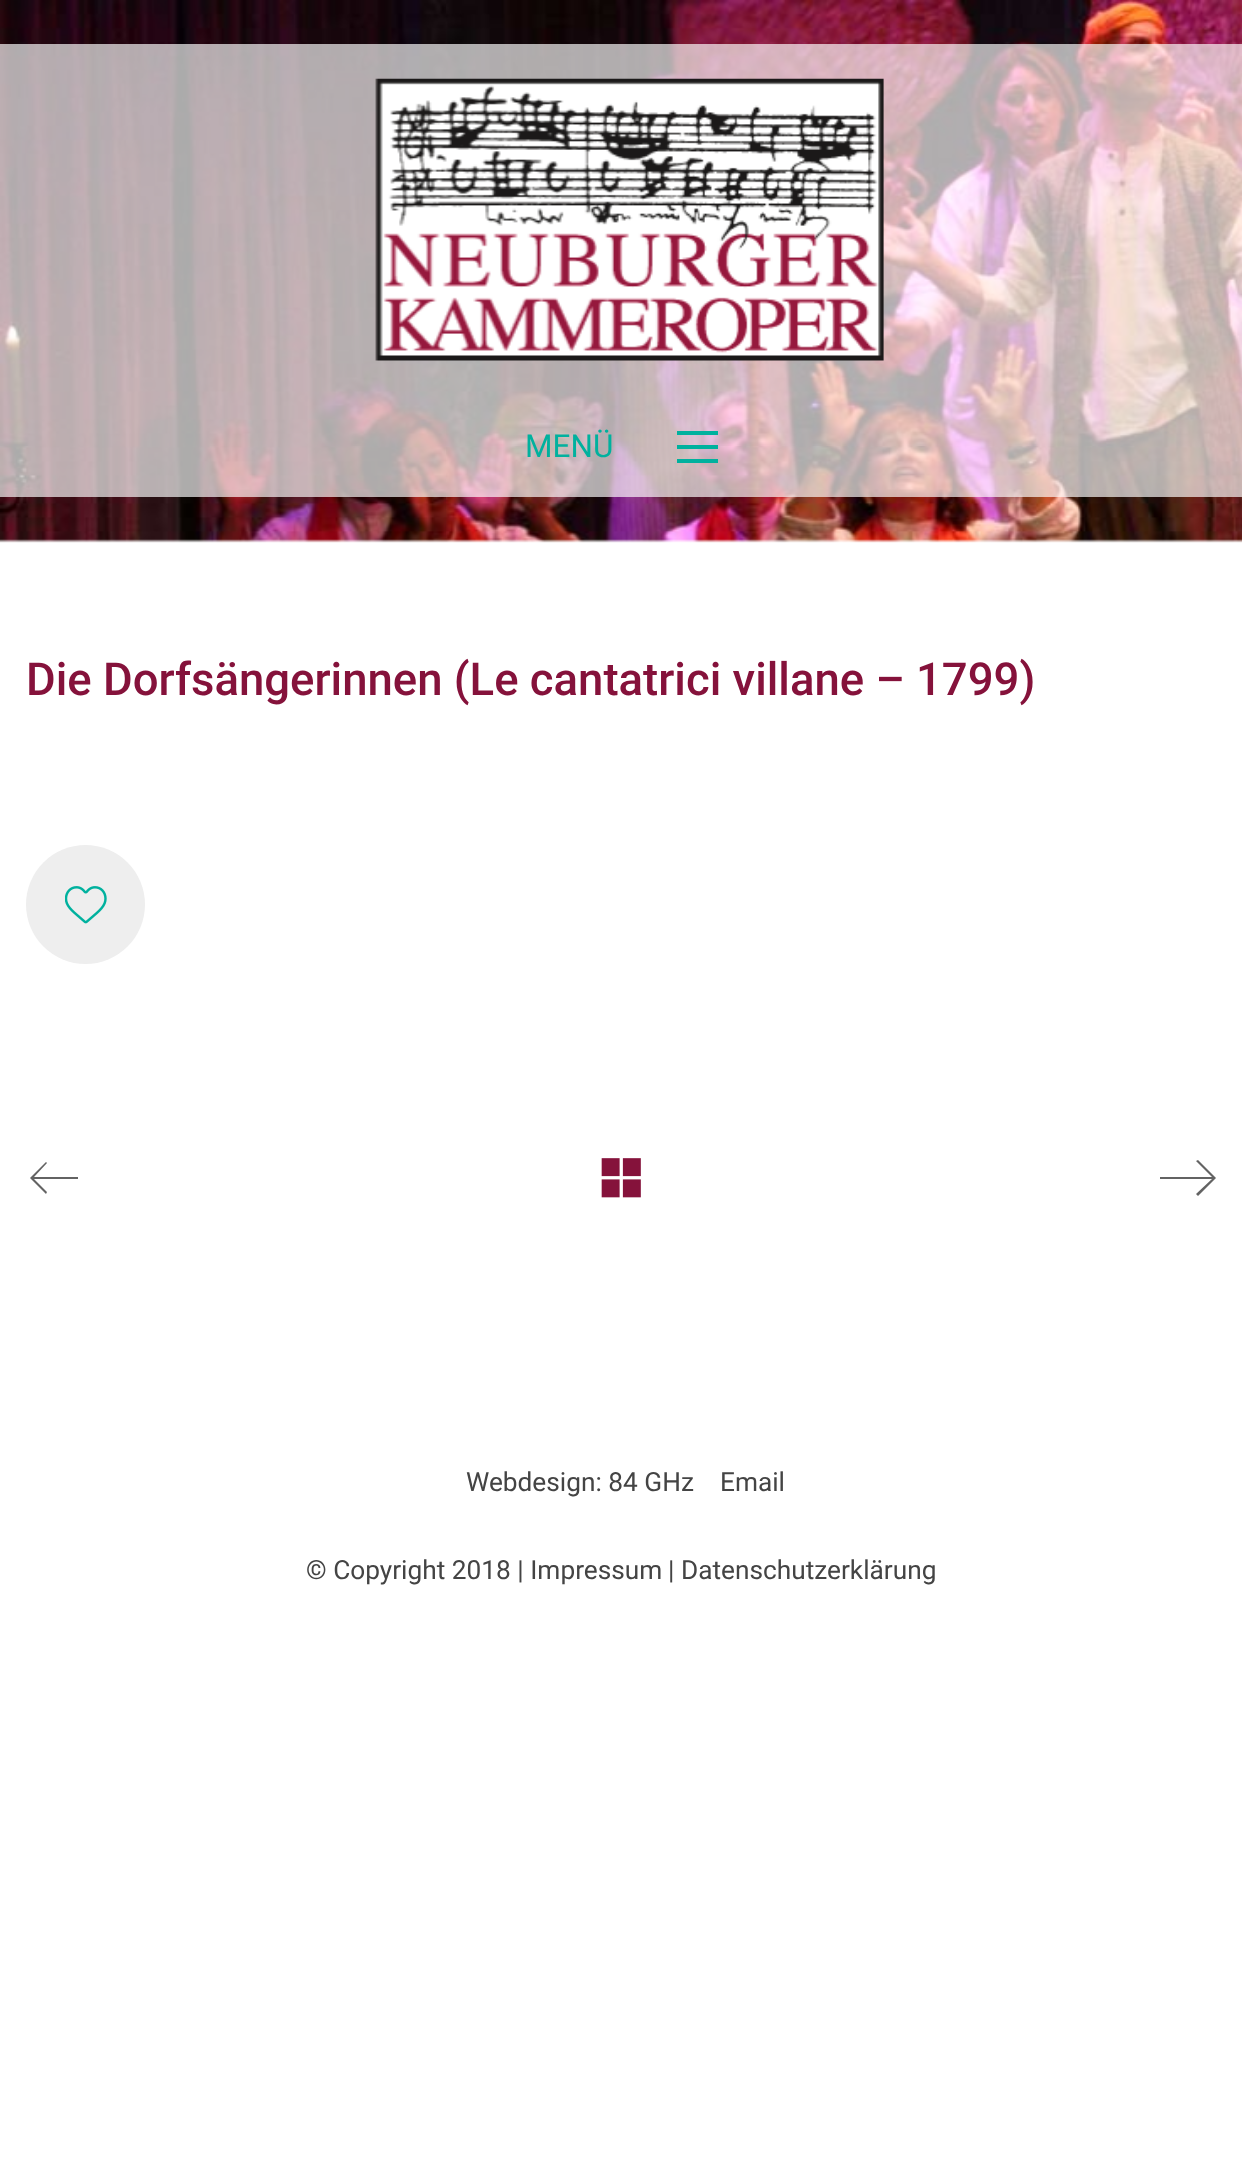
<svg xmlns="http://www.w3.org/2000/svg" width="1242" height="2180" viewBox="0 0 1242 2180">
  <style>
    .t1 { font: 31.5px Roboto; fill: #00b19e; }
    .t2 { font: 500 45.5px Roboto; fill: #85123b; }
    .t3 { font: 26.25px Roboto; fill: #444; }
  </style>
  <rect width="100%" height="100%" fill="#fff"/>
  <image x="0" y="0" width="1242" height="543" href="images/1.png"/>
  <rect x="0" y="44" width="1242" height="453" fill="#ffffffab"/>
  <image x="375" y="78" width="509" height="283" href="images/2.png"/>
  <text x="525" y="457" class="t1">MENÜ</text>
  <rect x="677" y="431" width="41" height="4" fill="#00b19e"/>
  <rect x="677" y="445" width="41" height="4" fill="#00b19e"/>
  <rect x="677" y="459" width="41" height="4" fill="#00b19e"/>
  <text x="26" y="695" class="t2">Die Dorfsängerinnen (Le cantatrici villane – 1799)</text>
  <circle cx="85.5" cy="904.5" r="59.5" fill="#eee"/>
  <image x="65" y="886" width="42" height="38" href="images/3.png"/>
  <path d="M78 1177H34L47 1163L46 1162L30 1178L46 1194L47 1192L34 1179H78Z" fill="#636363"/>
  <image x="601" y="1158" width="40" height="40" href="images/4.png"/>
  <path d="M1198 1160L1196 1161L1212 1177H1160V1179H1212L1196 1194L1198 1196L1216 1178Z" fill="#636363"/>
  <text x="466" y="1491" class="t3">Webdesign: 84 GHz</text>
  <text x="720" y="1491" class="t3">Email</text>
  <text x="306" y="1579" class="t3">© Copyright 2018 | Impressum</text>
  <text x="668" y="1579" class="t3">| Datenschutzerklärung</text>
</svg>
